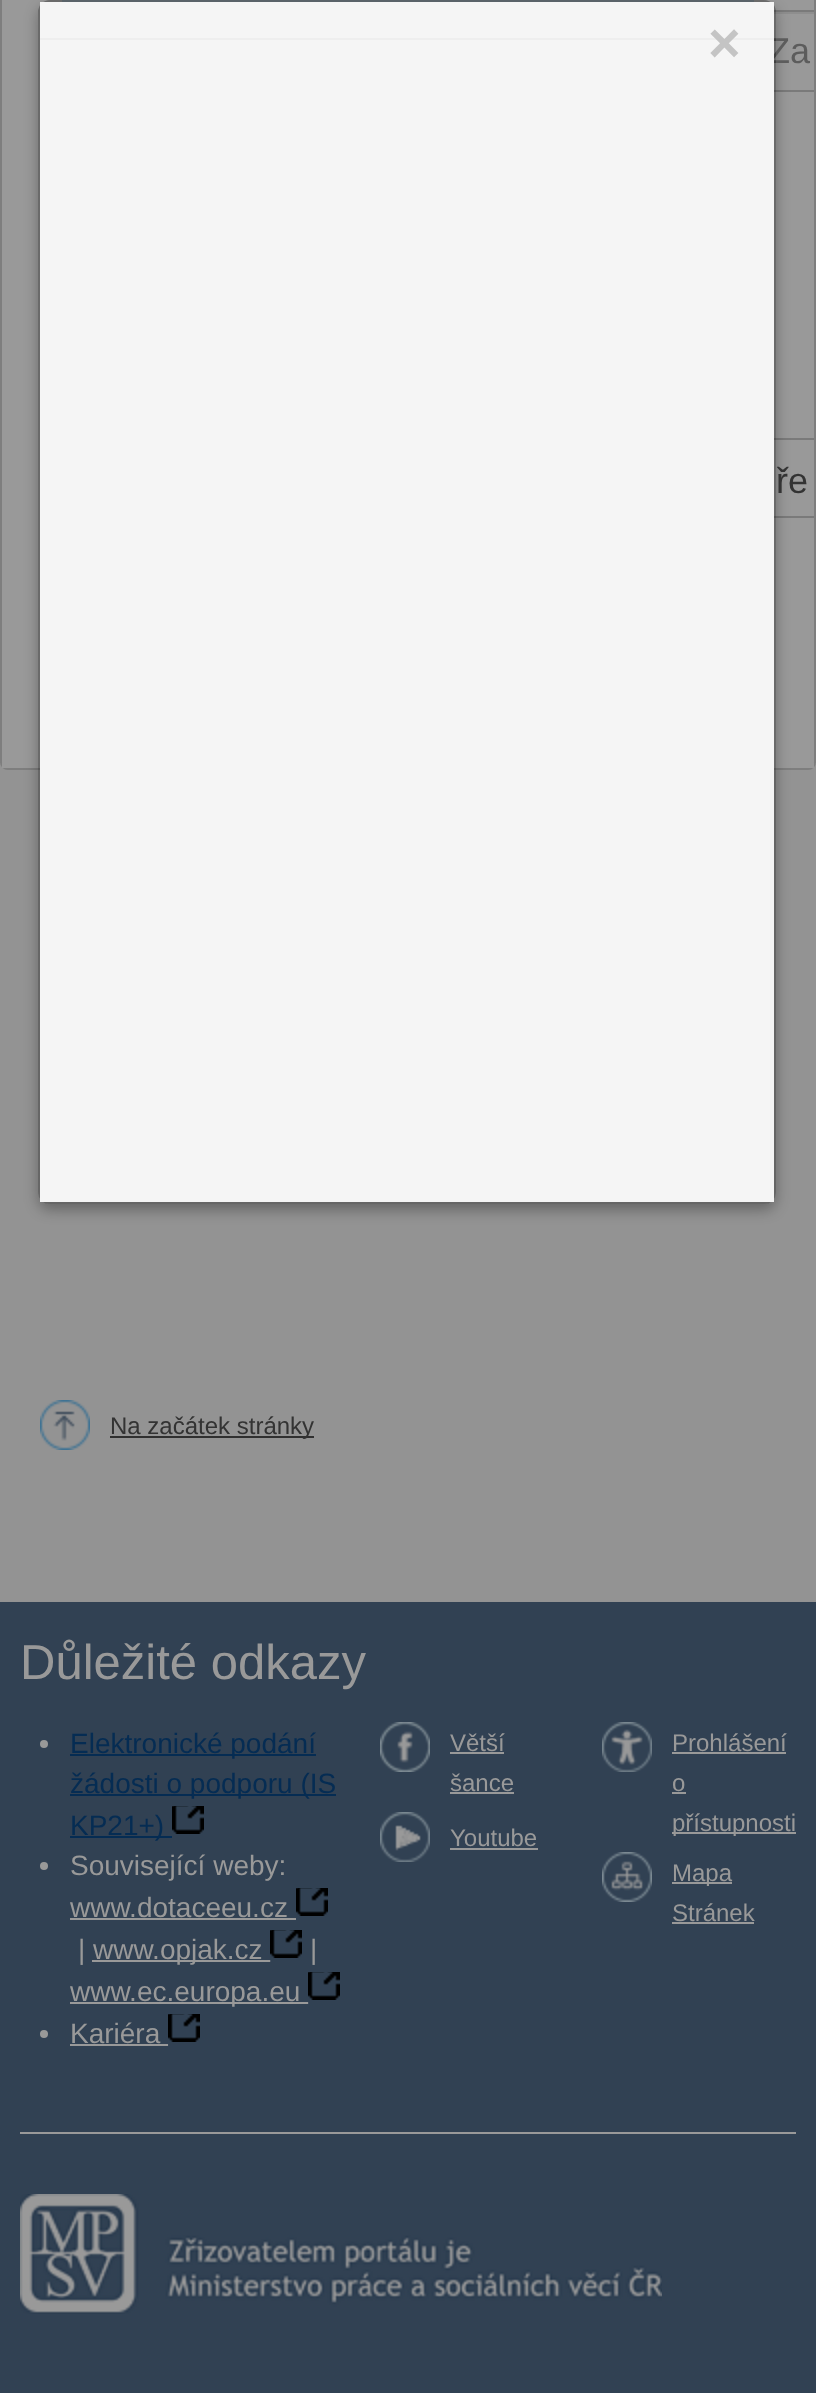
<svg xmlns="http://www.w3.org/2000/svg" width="816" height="2393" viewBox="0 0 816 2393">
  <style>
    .t1 { font: 36px Liberation Sans; fill: #5c5c5c; }
    .t2 { font: bold 56px Liberation Sans; fill: #c4c4c4; }
    .t3 { font: 36px Liberation Sans; fill: #333; }
    .t4 { font: 24px Liberation Sans; fill: #333; }
    .t5 { font: 49px Liberation Sans; fill: #999; }
    .t6 { font: 28px Liberation Sans; fill: #052c53; }
    .t7 { font: 28px Liberation Sans; fill: #999; }
    .t8 { font: 24px Liberation Sans; fill: #999; }
  </style>
  <defs>
    <clipPath id="clip1"><rect x="2" y="0" width="812" height="768"/></clipPath>
    <clipPath id="clip2"><path d="M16 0H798V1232H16ZM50 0H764C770.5 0 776 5.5 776 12V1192C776 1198.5 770.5 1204 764 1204H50C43.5 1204 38 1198.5 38 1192V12C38 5.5 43.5 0 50 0Z" clip-rule="evenodd"/></clipPath>
  </defs>
  <rect width="100%" height="100%" fill="#939393"/>
  <rect x="1" y="-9" width="814" height="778" rx="7" fill="#999" stroke="#7e7e7e" stroke-width="2"/>
  <rect x="62" y="0" width="692" height="2" fill="#818f97"/>
  <g clip-path="url(#clip1)">
    <path d="M754 14H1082C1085 14 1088 17 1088 20V18C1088 15 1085 12 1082 12H754C751 12 748 15 748 18V20C748 17 751 14 754 14Z" fill="#8e8e8e"/>
    <rect x="747" y="11" width="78" height="80" rx="7" fill="none" stroke="#7a7a7a" stroke-width="2"/>
    <rect x="547" y="439" width="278" height="78" rx="7" fill="none" stroke="#7a7a7a" stroke-width="2"/>
  </g>
  <rect x="2" y="763" width="812" height="5" fill="#999"/>
  <g clip-path="url(#clip2)">
    <rect x="38" y="6" width="738" height="1204" rx="12" fill="#0000004d" filter="blur(7px)"/>
  </g>
  <text x="768" y="63" class="t1">Za</text>
  <rect x="39" y="1" width="736" height="1202" rx="11" fill="none" stroke="#0000004d" stroke-width="2"/>
  <rect x="40" y="2" width="734" height="1200" fill="#f5f5f5"/>
  <rect x="40" y="38" width="734" height="2" fill="#eee"/>
  <text x="708" y="62" class="t2">×</text>
  <text x="776" y="493" class="t3">ře</text>
  <image x="40" y="1400" width="50" height="50" href="images/1.png"/>
  <rect x="110" y="1436" width="204" height="2" fill="#303030"/>
  <text x="110" y="1434" class="t4">Na začátek stránky</text>
  <rect x="0" y="1602" width="816" height="791" fill="#314153"/>
  <text x="20" y="1679" class="t5">Důležité odkazy</text>
  <circle cx="44" cy="1744" r="4" fill="#999"/>
  <rect x="70" y="1754" width="246" height="2" fill="#052c53"/>
  <text x="70" y="1753" class="t6">Elektronické podání</text>
  <rect x="70" y="1794" width="266" height="2" fill="#052c53"/>
  <text x="70" y="1793" class="t6">žádosti o podporu (IS</text>
  <rect x="70" y="1836" width="102" height="2" fill="#052c53"/>
  <text x="70" y="1835" class="t6">KP21+)</text>
  <image x="172" y="1806" width="32" height="28" href="images/2.png"/>
  <circle cx="44" cy="1866" r="4" fill="#999"/>
  <text x="70" y="1875" class="t7">Související weby:</text>
  <text x="70" y="1917" class="t7">www.dotaceeu.cz</text>
  <rect x="70" y="1918" width="226" height="2" fill="#999"/>
  <image x="296" y="1888" width="32" height="28" href="images/2.png"/>
  <text x="78" y="1959" class="t7">|</text>
  <rect x="92" y="1960" width="178" height="2" fill="#999"/>
  <text x="93" y="1959" class="t7">www.opjak.cz</text>
  <image x="270" y="1930" width="32" height="32" href="images/3.png"/>
  <text x="310" y="1959" class="t7">|</text>
  <rect x="70" y="2002" width="238" height="2" fill="#999"/>
  <text x="70" y="2001" class="t7">www.ec.europa.eu</text>
  <image x="308" y="1972" width="32" height="32" href="images/4.png"/>
  <circle cx="44" cy="2034" r="4" fill="#999"/>
  <text x="70" y="2043" class="t7">Kariéra</text>
  <rect x="70" y="2044" width="98" height="2" fill="#999"/>
  <image x="168" y="2014" width="32" height="32" href="images/5.png"/>
  <image x="380" y="1722" width="50" height="50" href="images/6.png"/>
  <text x="450" y="1751" class="t8">Větší</text>
  <rect x="450" y="1752" width="54" height="2" fill="#999"/>
  <text x="450" y="1791" class="t8">šance</text>
  <rect x="450" y="1792" width="64" height="2" fill="#999"/>
  <image x="380" y="1812" width="50" height="50" href="images/7.png"/>
  <text x="450" y="1846" class="t8">Youtube</text>
  <rect x="450" y="1848" width="88" height="2" fill="#999"/>
  <image x="602" y="1722" width="50" height="50" href="images/8.png"/>
  <text x="672" y="1751" class="t8">Prohlášení</text>
  <rect x="672" y="1752" width="114" height="2" fill="#999"/>
  <text x="672" y="1791" class="t8">o</text>
  <rect x="672" y="1792" width="14" height="2" fill="#999"/>
  <rect x="672" y="1832" width="124" height="2" fill="#999"/>
  <text x="672" y="1831" class="t8">přístupnosti</text>
  <image x="602" y="1852" width="50" height="50" href="images/9.png"/>
  <rect x="672" y="1882" width="60" height="2" fill="#999"/>
  <text x="672" y="1881" class="t8">Mapa</text>
  <text x="672" y="1921" class="t8">Stránek</text>
  <rect x="672" y="1922" width="82" height="2" fill="#999"/>
  <rect x="20" y="2132" width="776" height="2" fill="#999"/>
  <image x="20" y="2194" width="642" height="120" href="images/10.png"/>
</svg>
